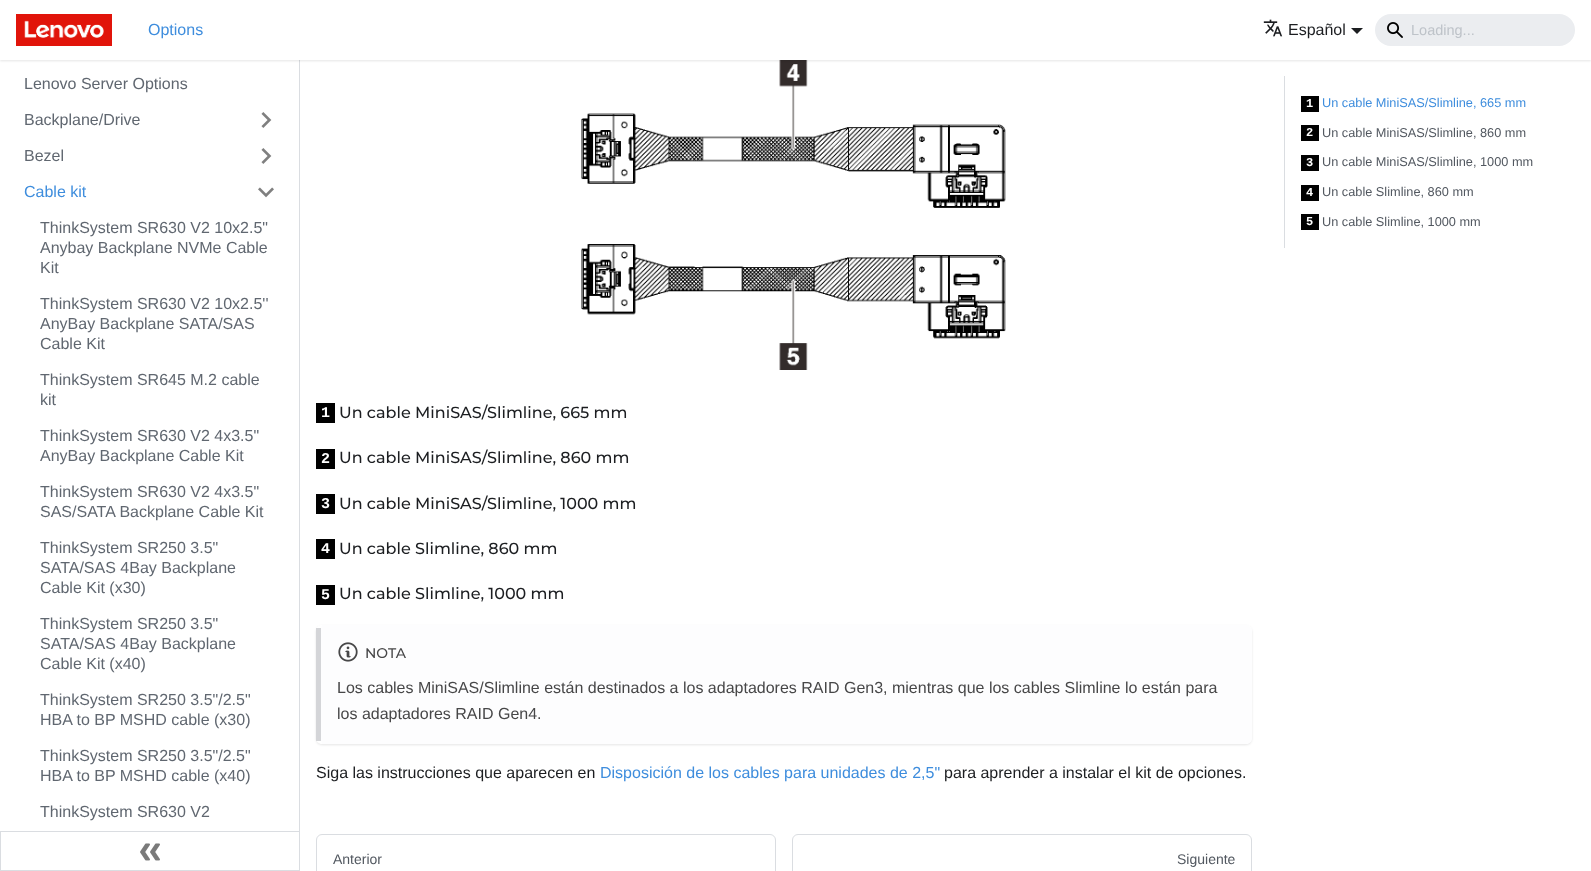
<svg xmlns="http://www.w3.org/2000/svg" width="1591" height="871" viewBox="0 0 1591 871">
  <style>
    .t1 { font: 16px Liberation Sans; fill: #3e8ddd; }
    .t2 { font: 16px Liberation Sans; fill: #1c1e21; }
    .t3 { font: 14.5px Liberation Sans; fill: #bec3c9; }
    .t4 { font: 16px Liberation Sans; fill: #606770; }
    .t5 { font: bold 12px Liberation Mono; fill: #fff; }
    .t6 { font: 12.75px Liberation Sans; fill: #3e8ddd; }
    .t7 { font: 12.75px Liberation Sans; fill: #525860; }
    .t8 { font: bold 15px Liberation Mono; fill: #fff; }
    .t9 { font: 500 16px Montserrat; fill: #1c1e21; }
    .t10 { font: 500 14px Montserrat; fill: #474748; }
    .t11 { font: 16px Liberation Sans; fill: #474748; }
    .t12 { font: 14px Liberation Sans; fill: #525860; }
  </style>
  <defs>
    <clipPath id="clip1"><path d="M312 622H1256V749H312ZM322 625H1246C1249.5 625 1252 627.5 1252 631V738C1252 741.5 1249.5 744 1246 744H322C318.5 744 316 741.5 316 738V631C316 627.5 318.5 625 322 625Z" clip-rule="evenodd"/></clipPath>
  </defs>
  <rect width="100%" height="100%" fill="#fff"/>
  <rect x="299" y="60" width="1" height="771" fill="#dadde1"/>
  <image x="581" y="60" width="425" height="310" href="images/7.png"/>
  <rect x="0" y="1" width="1591" height="60" fill="#0000001a" filter="blur(1px)"/>
  <rect x="0" y="0" width="1591" height="60" fill="#fff"/>
  <image x="16" y="14" width="96" height="32" href="images/1.png"/>
  <text x="148" y="35" class="t1">Options</text>
  <image x="1263" y="19" width="20" height="18" href="images/2.png"/>
  <text x="1288" y="35" class="t2">Español</text>
  <path d="M1351 28H1363L1357 34Z" fill="#1c1e21"/>
  <rect x="1375" y="14" width="200" height="32" rx="16" fill="#ebedf0"/>
  <image x="1387" y="22" width="16" height="16" href="images/3.png"/>
  <text x="1411" y="35" class="t3">Loading...</text>
  <text x="24" y="89" class="t4">Lenovo Server Options</text>
  <text x="24" y="125" class="t4">Backplane/Drive</text>
  <image x="261" y="112" width="11" height="16" href="images/4.png"/>
  <text x="24" y="161" class="t4">Bezel</text>
  <image x="261" y="148" width="11" height="16" href="images/4.png"/>
  <text x="24" y="197" class="t1">Cable kit</text>
  <image x="258" y="187" width="16" height="11" href="images/5.png"/>
  <text x="40" y="233" class="t4">ThinkSystem SR630 V2 10x2.5"</text>
  <text x="40" y="253" class="t4">Anybay Backplane NVMe Cable</text>
  <text x="40" y="273" class="t4">Kit</text>
  <text x="40" y="309" class="t4">ThinkSystem SR630 V2 10x2.5''</text>
  <text x="40" y="329" class="t4">AnyBay Backplane SATA/SAS</text>
  <text x="40" y="349" class="t4">Cable Kit</text>
  <text x="40" y="385" class="t4">ThinkSystem SR645 M.2 cable</text>
  <text x="40" y="405" class="t4">kit</text>
  <text x="40" y="441" class="t4">ThinkSystem SR630 V2 4x3.5"</text>
  <text x="40" y="461" class="t4">AnyBay Backplane Cable Kit</text>
  <text x="40" y="497" class="t4">ThinkSystem SR630 V2 4x3.5"</text>
  <text x="40" y="517" class="t4">SAS/SATA Backplane Cable Kit</text>
  <text x="40" y="553" class="t4">ThinkSystem SR250 3.5"</text>
  <text x="40" y="573" class="t4">SATA/SAS 4Bay Backplane</text>
  <text x="40" y="593" class="t4">Cable Kit (x30)</text>
  <text x="40" y="629" class="t4">ThinkSystem SR250 3.5"</text>
  <text x="40" y="649" class="t4">SATA/SAS 4Bay Backplane</text>
  <text x="40" y="669" class="t4">Cable Kit (x40)</text>
  <text x="40" y="705" class="t4">ThinkSystem SR250 3.5"/2.5"</text>
  <text x="40" y="725" class="t4">HBA to BP MSHD cable (x30)</text>
  <text x="40" y="761" class="t4">ThinkSystem SR250 3.5"/2.5"</text>
  <text x="40" y="781" class="t4">HBA to BP MSHD cable (x40)</text>
  <text x="40" y="817" class="t4">ThinkSystem SR630 V2</text>
  <rect x="0.5" y="831.5" width="299" height="39" fill="none" stroke="#dadde1"/>
  <image x="140" y="843" width="20" height="18" href="images/6.png"/>
  <rect x="1284" y="76" width="1" height="172" fill="#dadde1"/>
  <rect x="1301" y="96" width="18" height="16" fill="#000"/>
  <text x="1306" y="107" class="t5">1</text>
  <text x="1322" y="107" class="t6">Un cable MiniSAS/Slimline, 665 mm</text>
  <rect x="1301" y="125" width="18" height="16" fill="#000"/>
  <text x="1306" y="136" class="t5">2</text>
  <text x="1322" y="137" class="t7">Un cable MiniSAS/Slimline, 860 mm</text>
  <rect x="1301" y="155" width="18" height="16" fill="#000"/>
  <text x="1306" y="166" class="t5">3</text>
  <text x="1322" y="166" class="t7">Un cable MiniSAS/Slimline, 1000 mm</text>
  <rect x="1301" y="185" width="18" height="16" fill="#000"/>
  <text x="1306" y="196" class="t5">4</text>
  <text x="1322" y="196" class="t7">Un cable Slimline, 860 mm</text>
  <rect x="1301" y="214" width="18" height="16" fill="#000"/>
  <text x="1306" y="225" class="t5">5</text>
  <text x="1322" y="226" class="t7">Un cable Slimline, 1000 mm</text>
  <rect x="316" y="403" width="19" height="20" fill="#000"/>
  <text x="321" y="417" class="t8">1</text>
  <text x="339" y="418" class="t9">Un cable MiniSAS/Slimline, 665 mm</text>
  <rect x="316" y="449" width="19" height="20" fill="#000"/>
  <text x="321" y="463" class="t8">2</text>
  <text x="339" y="463" class="t9">Un cable MiniSAS/Slimline, 860 mm</text>
  <rect x="316" y="494" width="19" height="20" fill="#000"/>
  <text x="321" y="508" class="t8">3</text>
  <text x="339" y="509" class="t9">Un cable MiniSAS/Slimline, 1000 mm</text>
  <rect x="316" y="539" width="19" height="20" fill="#000"/>
  <text x="321" y="553" class="t8">4</text>
  <text x="339" y="554" class="t9">Un cable Slimline, 860 mm</text>
  <rect x="316" y="585" width="19" height="20" fill="#000"/>
  <text x="321" y="599" class="t8">5</text>
  <text x="339" y="599" class="t9">Un cable Slimline, 1000 mm</text>
  <g clip-path="url(#clip1)">
    <rect x="316" y="626" width="936" height="119" rx="6" fill="#0000001a" filter="blur(1px)"/>
  </g>
  <path d="M322 625H1246C1249 625 1252 628 1252 631V738C1252 741 1249 744 1246 744H322C322 744 321 741 321 738V631C321 628 322 625 322 625Z" fill="#fdfdfe"/>
  <rect x="316" y="628" width="5" height="113" fill="#d4d5d8"/>
  <image x="338" y="642" width="20" height="20" href="images/8.png"/>
  <text x="365" y="658" class="t10">NOTA</text>
  <text x="337" y="693" class="t11">Los cables MiniSAS/Slimline están destinados a los adaptadores RAID Gen3, mientras que los cables Slimline lo están para</text>
  <text x="337" y="719" class="t11">los adaptadores RAID Gen4.</text>
  <text x="316" y="778" class="t2">Siga las instrucciones que aparecen en</text>
  <text x="600" y="778" class="t1">Disposición de los cables para unidades de 2,5"</text>
  <text x="944" y="778" class="t2">para aprender a instalar el kit de opciones.</text>
  <rect x="316.5" y="834.5" width="459" height="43" rx="5.5" fill="none" stroke="#dadde1"/>
  <text x="333" y="864" class="t12">Anterior</text>
  <rect x="792.5" y="834.5" width="459" height="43" rx="5.5" fill="none" stroke="#dadde1"/>
  <text x="1177" y="864" class="t12">Siguiente</text>
</svg>
